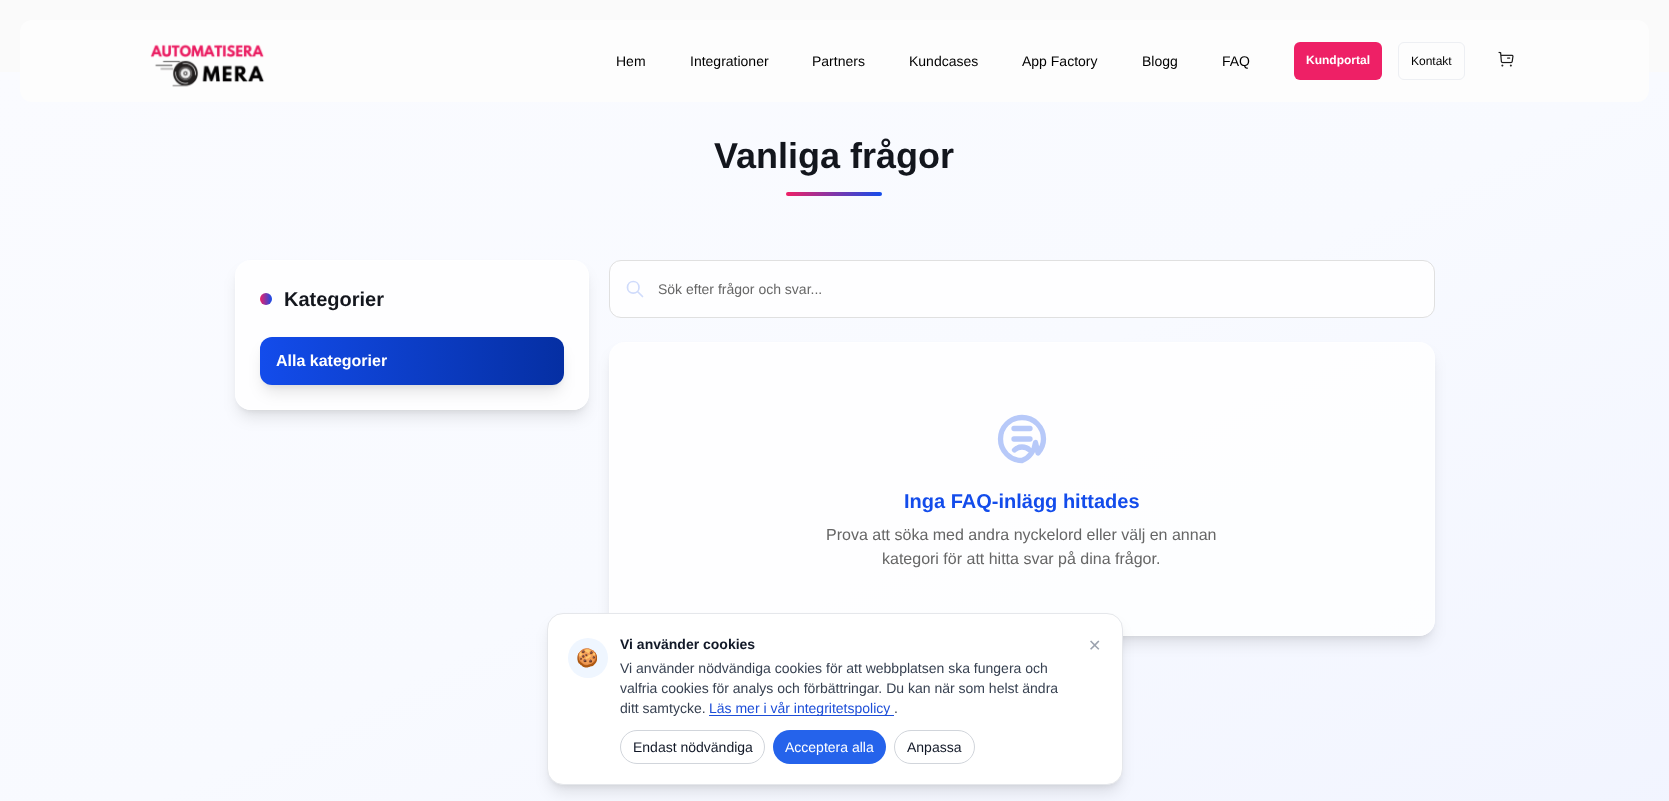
<svg xmlns="http://www.w3.org/2000/svg" width="1669" height="801" viewBox="0 0 1669 801">
  <style>
    .t1 { font: 14px Liberation Sans; fill: #000; }
    .t2 { font: bold 12px Liberation Sans; fill: #fff; }
    .t3 { font: 12px Liberation Sans; fill: #000; }
    .t4 { font: bold 36px Liberation Sans; fill: #13161d; }
    .t5 { font: bold 20px Liberation Sans; fill: #13161d; }
    .t6 { font: bold 16px Liberation Sans; fill: #fff; }
    .t7 { font: 14px Liberation Sans; fill: #666; }
    .t8 { font: bold 20px Liberation Sans; fill: #134ceb; }
    .t9 { font: 16px Liberation Sans; fill: #666; }
    .t10 { font: bold 14px Liberation Sans; fill: #111827; }
    .t11 { font: 14px Liberation Sans; fill: #374151; }
    .t12 { font: 14px Liberation Sans; fill: #1d4ed8; }
    .t13 { font: 14px Liberation Sans; fill: #111827; }
    .t14 { font: 14px Liberation Sans; fill: #fff; }
    .t15 { font: 16px DejaVu Sans; fill: #9ca3af; }
    .t16 { font: bold 18px Noto Color Emoji; fill: #2563eb; }
  </style>
  <defs>
    <linearGradient id="g1" gradientUnits="userSpaceOnUse" x1="522" y1="-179" x2="1147" y2="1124"><stop offset="0" stop-color="#fafbff"/><stop offset="0.5" stop-color="#f8faff"/><stop offset="1" stop-color="#f1f4ff"/></linearGradient>
    <linearGradient id="g2" gradientUnits="userSpaceOnUse" x1="786" y1="194" x2="882" y2="194"><stop offset="0" stop-color="#ee2066"/><stop offset="1" stop-color="#134ceb"/></linearGradient>
    <clipPath id="clip1"><path d="M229 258H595V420H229ZM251 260H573C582 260 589 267 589 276V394C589 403 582 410 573 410H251C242 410 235 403 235 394V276C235 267 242 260 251 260Z" clip-rule="evenodd"/></clipPath>
    <clipPath id="clip2"><path d="M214 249H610V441H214ZM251 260H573C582 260 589 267 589 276V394C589 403 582 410 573 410H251C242 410 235 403 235 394V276C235 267 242 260 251 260Z" clip-rule="evenodd"/></clipPath>
    <linearGradient id="g3" gradientUnits="userSpaceOnUse" x1="260" y1="299" x2="272" y2="299"><stop offset="0" stop-color="#ee2066"/><stop offset="1" stop-color="#134ceb"/></linearGradient>
    <linearGradient id="g4" gradientUnits="userSpaceOnUse" x1="260" y1="361" x2="564" y2="361"><stop offset="0" stop-color="#134ceb"/><stop offset="1" stop-color="#052fa3"/></linearGradient>
    <clipPath id="clip3"><path d="M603 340H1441V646H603ZM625 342H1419C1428 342 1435 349 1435 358V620C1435 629 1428 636 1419 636H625C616 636 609 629 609 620V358C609 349 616 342 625 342Z" clip-rule="evenodd"/></clipPath>
    <clipPath id="clip4"><path d="M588 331H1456V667H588ZM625 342H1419C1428 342 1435 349 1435 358V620C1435 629 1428 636 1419 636H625C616 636 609 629 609 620V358C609 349 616 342 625 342Z" clip-rule="evenodd"/></clipPath>
  </defs>
  <rect width="100%" height="100%" fill="#fafafa"/>
  <rect x="0" y="72" width="1669" height="729" fill="url(#g1)"/>
  <rect x="20" y="20" width="1629" height="82" rx="12" fill="#fdfdfd"/>
  <image x="150" y="44" width="115" height="43" href="images/1.png"/>
  <text x="616" y="66" class="t1">Hem</text>
  <text x="690" y="66" class="t1">Integrationer</text>
  <text x="812" y="66" class="t1">Partners</text>
  <text x="909" y="66" class="t1">Kundcases</text>
  <text x="1022" y="66" class="t1">App Factory</text>
  <text x="1142" y="66" class="t1">Blogg</text>
  <text x="1222" y="66" class="t1">FAQ</text>
  <rect x="1294" y="42" width="88" height="38" rx="6" fill="#ee2066"/>
  <text x="1306" y="64" class="t2">Kundportal</text>
  <rect x="1398.5" y="42.5" width="66" height="37" rx="5.5" fill="none" stroke="#edeff3"/>
  <text x="1411" y="65" class="t3">Kontakt</text>
  <image x="1498" y="51" width="16" height="16" href="images/2.png"/>
  <text x="714" y="168" class="t4">Vanliga frågor</text>
  <rect x="786" y="192" width="96" height="4" rx="2" fill="url(#g2)"/>
  <g clip-path="url(#clip1)">
    <rect x="239" y="268" width="346" height="142" rx="12" fill="#0000001a" filter="blur(3px)"/>
  </g>
  <g clip-path="url(#clip2)">
    <rect x="238" y="273" width="348" height="144" rx="13" fill="#0000001a" filter="blur(7.5px)"/>
  </g>
  <rect x="235" y="260" width="354" height="150" rx="16" fill="#ffffffcc"/>
  <rect x="235.5" y="260.5" width="353" height="149" rx="15.5" fill="none" stroke="#ffffff80"/>
  <circle cx="266" cy="299" r="6" fill="url(#g3)"/>
  <text x="284" y="306" class="t5">Kategorier</text>
  <rect x="264" y="345" width="296" height="40" rx="8" fill="#0000001a" filter="blur(3px)"/>
  <rect x="263" y="350" width="298" height="42" rx="9" fill="#0000001a" filter="blur(7.5px)"/>
  <rect x="260" y="337" width="304" height="48" rx="12" fill="url(#g4)"/>
  <text x="276" y="366" class="t6">Alla kategorier</text>
  <path d="M642.5 296.5L637.5 291.5M639 287.5C639 295 627.5 295 627.5 287.5C627.5 279.5 639 279.5 639 287.5Z" fill="none" stroke="#134ceb" stroke-width="1.7" stroke-linecap="round" stroke-linejoin="round"/>
  <rect x="609.5" y="260.5" width="825" height="57" rx="11.5" fill="#ffffffcc" stroke="#e0e0e0"/>
  <text x="658" y="294" class="t7">Sök efter frågor och svar...</text>
  <g clip-path="url(#clip3)">
    <rect x="613" y="350" width="818" height="286" rx="12" fill="#0000001a" filter="blur(3px)"/>
  </g>
  <g clip-path="url(#clip4)">
    <rect x="612" y="355" width="820" height="288" rx="13" fill="#0000001a" filter="blur(7.5px)"/>
  </g>
  <rect x="609" y="342" width="826" height="294" rx="16" fill="#ffffffcc"/>
  <rect x="609.5" y="342.5" width="825" height="293" rx="15.5" fill="none" stroke="#ffffff80"/>
  <path d="M1014.5 450C1018.5 446 1025.5 446 1029.5 450M1014 439H1030M1014 428.5H1030M1035.5 442.5C1034.5 450.5 1029.5 457.5 1022 460.5C1010 460.5 1000.5 451 1000.5 439C1000.5 427 1010 417.5 1022 417.5C1034 417.5 1043.5 427 1043.5 439C1043.5 444 1041.5 449 1038 453Z" fill="none" stroke="#b7c9f9" stroke-width="5.3" stroke-linecap="round" stroke-linejoin="round"/>
  <text x="904" y="508" class="t8">Inga FAQ-inlägg hittades</text>
  <text x="826" y="540" class="t9">Prova att söka med andra nyckelord eller välj en annan</text>
  <text x="882" y="564" class="t9">kategori för att hitta svar på dina frågor.</text>
  <rect x="551" y="621" width="568" height="164" rx="12" fill="#0000001a" filter="blur(3px)"/>
  <rect x="550" y="626" width="570" height="166" rx="13" fill="#0000001a" filter="blur(7.5px)"/>
  <rect x="547.5" y="613.5" width="575" height="171" rx="15.5" fill="#fff" stroke="#e5e7eb"/>
  <text x="620" y="649" class="t10">Vi använder cookies</text>
  <text x="620" y="673" class="t11">Vi använder nödvändiga cookies för att webbplatsen ska fungera och</text>
  <text x="620" y="693" class="t11">valfria cookies för analys och förbättringar. Du kan när som helst ändra</text>
  <text x="620" y="713" class="t11">ditt samtycke.</text>
  <rect x="709" y="715" width="185" height="1" fill="#1d4ed8"/>
  <text x="709" y="713" class="t12">Läs mer i vår integritetspolicy</text>
  <text x="894" y="713" class="t11">.</text>
  <rect x="620.5" y="730.5" width="144" height="33" rx="16.5" fill="none" stroke="#d1d5db"/>
  <text x="633" y="752" class="t13">Endast nödvändiga</text>
  <rect x="773" y="730" width="113" height="34" rx="17" fill="#2563eb"/>
  <text x="785" y="752" class="t14">Acceptera alla</text>
  <rect x="894.5" y="730.5" width="80" height="33" rx="16.5" fill="none" stroke="#d1d5db"/>
  <text x="907" y="752" class="t13">Anpassa</text>
  <text x="1088" y="651" class="t15">✕</text>
  <circle cx="588" cy="658" r="20" fill="#eff6ff"/>
  <text x="576" y="664" class="t16">🍪</text>
</svg>
